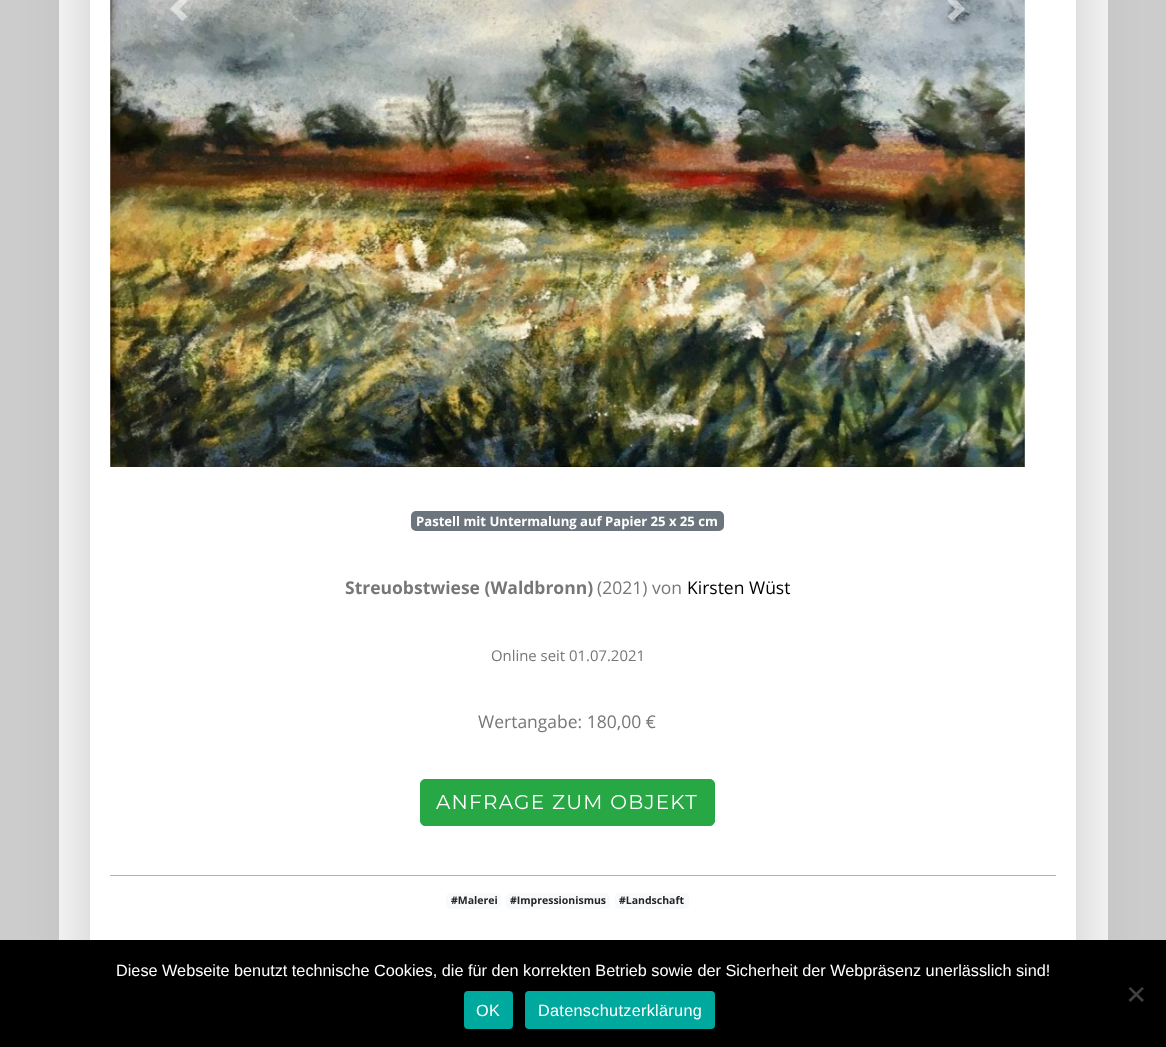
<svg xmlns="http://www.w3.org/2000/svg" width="1166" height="1047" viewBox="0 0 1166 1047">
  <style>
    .t1 { font: bold 13.1px Open Sans; fill: #fff; }
    .t2 { font: bold 17.5px Open Sans; fill: #777; }
    .t3 { font: 17.5px Open Sans; fill: #777; }
    .t4 { font: 17.5px Open Sans; fill: #000; }
    .t5 { font: 14.9px Open Sans; fill: #777; }
    .t6 { font: 20px Montserrat; letter-spacing: 1.25px; fill: #fff; }
    .t7 { font: bold 10.5px Open Sans; fill: #212529; }
    .t8 { font: 16.25px Liberation Sans; fill: #fff; }
    .t9 { font: 16.25px Liberation Sans; letter-spacing: 0.3px; fill: #fff; }
  </style>
  <rect width="100%" height="100%" fill="#ccc"/>
  <rect x="59" y="0" width="1049" height="940" fill="#f7f7f7"/>
  <rect x="90" y="-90" width="986" height="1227" fill="#0000002e" filter="blur(30px)"/>
  <rect x="90" y="0" width="986" height="940" fill="#fff"/>
  <image x="110" y="0" width="915" height="467" href="images/1.png"/>
  <path d="M182.5-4L170 9L182.5 21L187.5 16.5L179.5 9L187.5 1Z" fill="#ffffff80"/>
  <path d="M952.5-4L947.5 1L955.5 9L947.5 16.5L952.5 21L965 9Z" fill="#ffffff80"/>
  <rect x="411" y="511" width="313" height="20" rx="5" fill="#6c757d"/>
  <text x="416" y="526" class="t1">Pastell mit Untermalung auf Papier 25 x 25 cm</text>
  <text x="345" y="594" class="t2">Streuobstwiese (Waldbronn)</text>
  <text x="597" y="594" class="t3">(2021) von</text>
  <text x="687" y="594" class="t4">Kirsten Wüst</text>
  <text x="491" y="661" class="t5">Online seit 01.07.2021</text>
  <text x="478" y="728" class="t3">Wertangabe: 180,00 €</text>
  <rect x="420.5" y="779.5" width="294" height="46" rx="4.5" fill="#28a745" stroke="#28a745"/>
  <text x="436" y="809" class="t6">ANFRAGE ZUM OBJEKT</text>
  <rect x="110" y="875" width="946" height="1" fill="#b3b3b1"/>
  <rect x="446" y="893" width="55" height="16" rx="5" fill="#f8f9fa"/>
  <text x="451" y="904" class="t7">#Malerei</text>
  <rect x="506" y="893" width="104" height="16" rx="5" fill="#f8f9fa"/>
  <text x="510" y="904" class="t7">#Impressionismus</text>
  <rect x="615" y="893" width="74" height="16" rx="5" fill="#f8f9fa"/>
  <text x="619" y="904" class="t7">#Landschaft</text>
  <rect x="0" y="940" width="1166" height="107" fill="#000"/>
  <text x="116" y="976" class="t8">Diese Webseite benutzt technische Cookies, die für den korrekten Betrieb sowie der Sicherheit der Webpräsenz unerlässlich sind!</text>
  <path d="M1142 987L1144 988.5L1130.5 1002L1128.5 1000Z" fill="#404040"/>
  <path d="M1128.5 988.5L1130.5 987L1144 1000L1142 1002Z" fill="#404040"/>
  <rect x="464" y="991" width="49" height="38" rx="4" fill="#00a99d"/>
  <text x="476" y="1016" class="t9">OK</text>
  <rect x="525" y="991" width="190" height="38" rx="4" fill="#00a99d"/>
  <text x="538" y="1016" class="t9">Datenschutzerklärung</text>
</svg>
